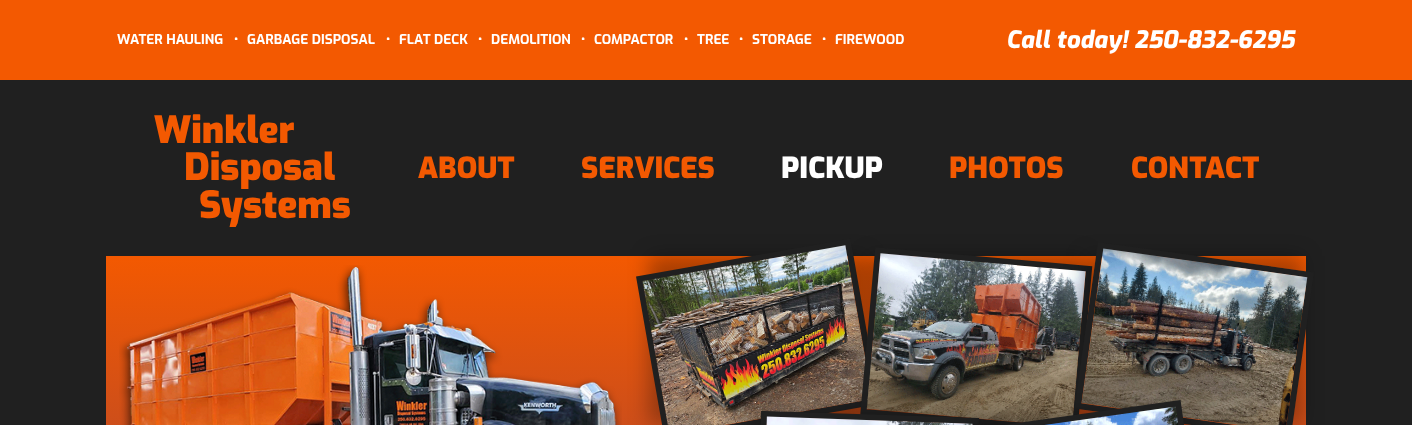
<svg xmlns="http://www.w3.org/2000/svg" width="1412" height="425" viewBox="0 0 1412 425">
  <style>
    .t1 { font: bold 13.5px Exo; fill: #fff; }
    .t2 { font: italic 800 24px Exo; fill: #fff; }
    .t3 { font: 900 37.5px Exo; fill: #f35901; }
    .t4 { font: 900 29px Exo; fill: #f35901; }
    .t5 { font: 900 29px Exo; fill: #fff; }
  </style>
  <defs>
    <linearGradient id="g1" gradientUnits="userSpaceOnUse" x1="706" y1="256" x2="706" y2="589"><stop offset="0" stop-color="#f35901"/><stop offset="1" stop-color="#a94432"/></linearGradient>
    <clipPath id="clip1"><path d="M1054 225H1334V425H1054ZM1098 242L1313.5 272.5L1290.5 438.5L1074.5 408.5Z" clip-rule="evenodd"/></clipPath>
  </defs>
  <rect width="100%" height="100%" fill="#f35901"/>
  <text x="117" y="44" class="t1">WATER HAULING</text>
  <text x="234" y="44" class="t1">•</text>
  <text x="247" y="44" class="t1">GARBAGE DISPOSAL</text>
  <text x="386" y="44" class="t1">•</text>
  <text x="399" y="44" class="t1">FLAT DECK</text>
  <text x="478" y="44" class="t1">•</text>
  <text x="491" y="44" class="t1">DEMOLITION</text>
  <text x="581" y="44" class="t1">•</text>
  <text x="594" y="44" class="t1">COMPACTOR</text>
  <text x="684" y="44" class="t1">•</text>
  <text x="697" y="44" class="t1">TREE</text>
  <text x="739" y="44" class="t1">•</text>
  <text x="752" y="44" class="t1">STORAGE</text>
  <text x="822" y="44" class="t1">•</text>
  <text x="835" y="44" class="t1">FIREWOOD</text>
  <text x="1006" y="48" class="t2">Call today! 250-832-6295</text>
  <rect x="0" y="80" width="1412" height="345" fill="#202020"/>
  <text x="154" y="143" class="t3">Winkler</text>
  <text x="184" y="180" class="t3">Disposal</text>
  <text x="199" y="218" class="t3">Systems</text>
  <text x="418" y="178" class="t4">ABOUT</text>
  <text x="581" y="178" class="t4">SERVICES</text>
  <text x="781" y="178" class="t5">PICKUP</text>
  <text x="949" y="178" class="t4">PHOTOS</text>
  <text x="1131" y="178" class="t4">CONTACT</text>
  <rect x="106" y="256" width="1200" height="169" fill="url(#g1)"/>
  <image x="119" y="265" width="503" height="160" href="images/1.png"/>
  <rect x="649" y="256" width="218" height="168" fill="#0000004d" filter="blur(10px)"/>
  <path d="M639.5 279L848 242L876 401.5L667.5 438.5Z" fill="none" stroke="#202020" stroke-width="6"/>
  <image x="642" y="245" width="228" height="180" href="images/2.png"/>
  <rect x="867" y="256" width="218" height="168" fill="#0000004d" filter="blur(10px)"/>
  <path d="M878 250.5L1089 269L1074.5 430L863.5 412Z" fill="none" stroke="#202020" stroke-width="6"/>
  <image x="866" y="253" width="220" height="172" href="images/3.png"/>
  <g clip-path="url(#clip1)">
    <rect x="1085" y="256" width="218" height="168" fill="#0000004d" filter="blur(10px)"/>
  </g>
  <path d="M1100.5 245.5L1310.5 275L1288 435.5L1078 406Z" fill="none" stroke="#202020" stroke-width="6"/>
  <image x="1081" y="248" width="227" height="177" href="images/4.png"/>
  <rect x="758" y="414" width="218" height="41" fill="#0000004d" filter="blur(10px)"/>
  <path d="M764 414L976 421L970 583L758.5 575.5Z" fill="none" stroke="#202020" stroke-width="6"/>
  <image x="766" y="416" width="207" height="9" href="images/5.png"/>
  <rect x="976" y="415" width="217" height="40" fill="#0000004d" filter="blur(10px)"/>
  <path d="M968.5 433L1178 403.5L1200.5 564L991 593.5Z" fill="none" stroke="#202020" stroke-width="6"/>
  <image x="1044" y="406" width="134" height="19" href="images/6.png"/>
</svg>
